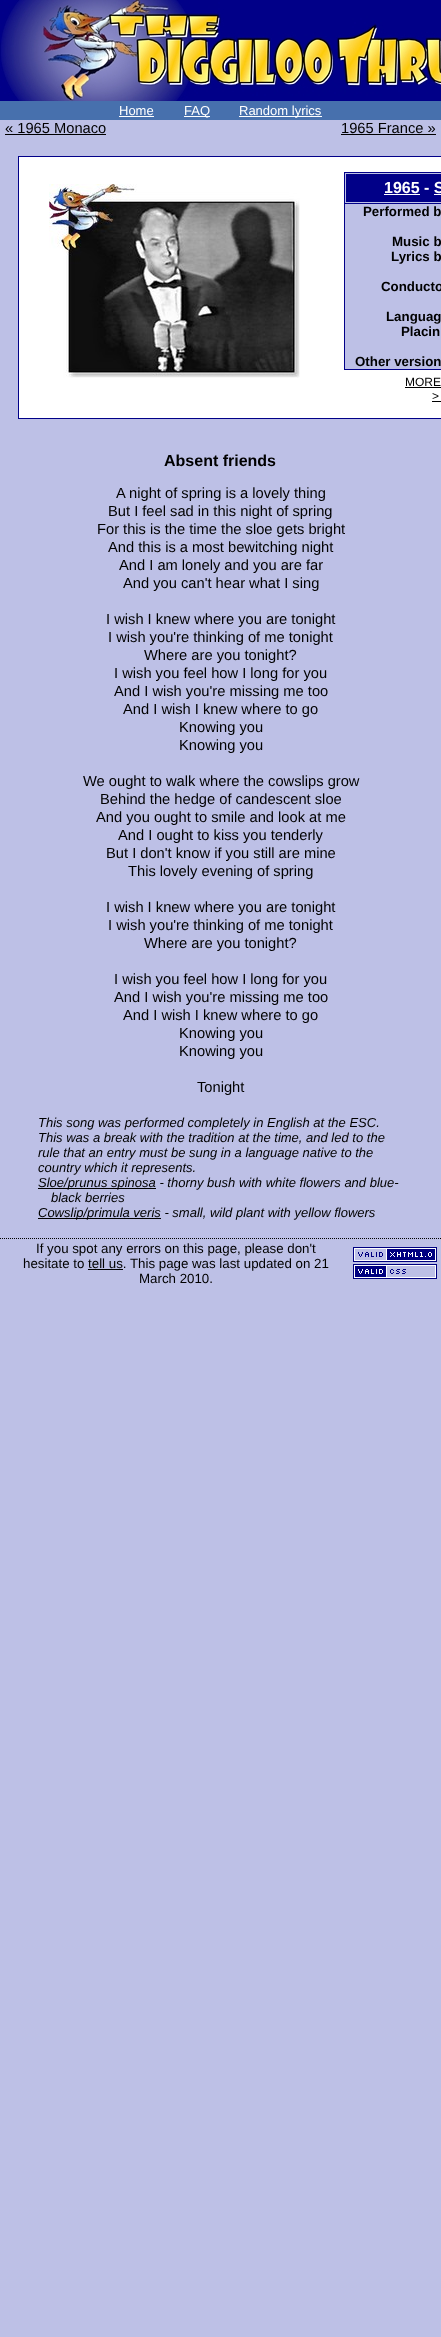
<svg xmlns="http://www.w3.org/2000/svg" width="441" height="2337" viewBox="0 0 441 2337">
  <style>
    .t1 { font: 13px Liberation Sans; fill: #fff; }
    .t2 { font: 14.7px Liberation Sans; fill: #000; }
    .t3 { font: bold 16px Liberation Sans; fill: #fff; }
    .t4 { font: bold 13.3px Liberation Sans; fill: #000; }
    .t5 { font: 12px Liberation Sans; fill: #000; }
    .t6 { font: bold 16px Liberation Sans; fill: #000; }
    .t7 { font: italic 13px Liberation Sans; fill: #000; }
    .t8 { font: 13.3px Liberation Sans; fill: #000; }
  </style>
  <rect width="100%" height="100%" fill="#bdc0e6"/>
  <image x="0" y="0" width="441" height="101" href="images/1.png"/>
  <rect x="0" y="101" width="441" height="19" fill="#4770ad"/>
  <text x="119" y="115" class="t1">Home</text>
  <rect x="119" y="116" width="35" height="1" fill="#fff"/>
  <rect x="184" y="116" width="26" height="1" fill="#fff"/>
  <text x="184" y="115" class="t1">FAQ</text>
  <rect x="239" y="116" width="83" height="1" fill="#fff"/>
  <text x="239" y="115" class="t1">Random lyrics</text>
  <text x="5" y="133" class="t2">« 1965 Monaco</text>
  <rect x="5" y="134" width="101" height="1" fill="#000"/>
  <text x="341" y="133" class="t2">1965 France »</text>
  <rect x="341" y="134" width="95" height="1" fill="#000"/>
  <rect x="18.5" y="156.5" width="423" height="262" fill="#fff" stroke="#010088"/>
  <image x="49" y="184" width="251" height="194" href="images/2.png"/>
  <rect x="344.5" y="172.5" width="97" height="197" fill="#bdc0e6" stroke="#010088"/>
  <rect x="345" y="203" width="96" height="1" fill="#010088"/>
  <rect x="346" y="174" width="95" height="28" fill="#010088"/>
  <text x="384" y="193" class="t3">1965 - S</text>
  <rect x="384" y="194" width="36" height="1" fill="#fff"/>
  <rect x="434" y="194" width="7" height="1" fill="#fff"/>
  <text x="363" y="216" class="t4">Performed b</text>
  <text x="392" y="246" class="t4">Music b</text>
  <text x="391" y="261" class="t4">Lyrics b</text>
  <text x="381" y="291" class="t4">Conducto</text>
  <text x="386" y="321" class="t4">Languag</text>
  <text x="401" y="336" class="t4">Placin</text>
  <text x="355" y="366" class="t4">Other version</text>
  <text x="405" y="386" class="t5">MORE</text>
  <rect x="405" y="387" width="36" height="1" fill="#000"/>
  <text x="432" y="400" class="t5">&gt;</text>
  <rect x="432" y="401" width="9" height="1" fill="#000"/>
  <text x="164" y="466" class="t6">Absent friends</text>
  <text x="116" y="498" class="t2">A night of spring is a lovely thing</text>
  <text x="108" y="516" class="t2">But I feel sad in this night of spring</text>
  <text x="97" y="534" class="t2">For this is the time the sloe gets bright</text>
  <text x="108" y="552" class="t2">And this is a most bewitching night</text>
  <text x="119" y="570" class="t2">And I am lonely and you are far</text>
  <text x="123" y="588" class="t2">And you can't hear what I sing</text>
  <text x="106" y="624" class="t2">I wish I knew where you are tonight</text>
  <text x="108" y="642" class="t2">I wish you're thinking of me tonight</text>
  <text x="144" y="660" class="t2">Where are you tonight?</text>
  <text x="114" y="678" class="t2">I wish you feel how I long for you</text>
  <text x="114" y="696" class="t2">And I wish you're missing me too</text>
  <text x="123" y="714" class="t2">And I wish I knew where to go</text>
  <text x="179" y="732" class="t2">Knowing you</text>
  <text x="179" y="750" class="t2">Knowing you</text>
  <text x="83" y="786" class="t2">We ought to walk where the cowslips grow</text>
  <text x="100" y="804" class="t2">Behind the hedge of candescent sloe</text>
  <text x="96" y="822" class="t2">And you ought to smile and look at me</text>
  <text x="118" y="840" class="t2">And I ought to kiss you tenderly</text>
  <text x="106" y="858" class="t2">But I don't know if you still are mine</text>
  <text x="128" y="876" class="t2">This lovely evening of spring</text>
  <text x="106" y="912" class="t2">I wish I knew where you are tonight</text>
  <text x="108" y="930" class="t2">I wish you're thinking of me tonight</text>
  <text x="144" y="948" class="t2">Where are you tonight?</text>
  <text x="114" y="984" class="t2">I wish you feel how I long for you</text>
  <text x="114" y="1002" class="t2">And I wish you're missing me too</text>
  <text x="123" y="1020" class="t2">And I wish I knew where to go</text>
  <text x="179" y="1038" class="t2">Knowing you</text>
  <text x="179" y="1056" class="t2">Knowing you</text>
  <text x="197" y="1092" class="t2">Tonight</text>
  <text x="38" y="1127" class="t7">This song was performed completely in English at the ESC.</text>
  <text x="38" y="1142" class="t7">This was a break with the tradition at the time, and led to the</text>
  <text x="38" y="1157" class="t7">rule that an entry must be sung in a language native to the</text>
  <text x="38" y="1172" class="t7">country which it represents.</text>
  <rect x="38" y="1188" width="118" height="1" fill="#000"/>
  <text x="38" y="1187" class="t7">Sloe/prunus spinosa - thorny bush with white flowers and blue-</text>
  <text x="51" y="1202" class="t7">black berries</text>
  <rect x="38" y="1218" width="123" height="1" fill="#000"/>
  <text x="38" y="1217" class="t7">Cowslip/primula veris - small, wild plant with yellow flowers</text>
  <path d="M0 1238.5H441" fill="none" stroke="#000" stroke-dasharray="1 1"/>
  <text x="36" y="1253" class="t8">If you spot any errors on this page, please don't</text>
  <text x="23" y="1268" class="t8">hesitate to tell us. This page was last updated on 21</text>
  <rect x="88" y="1269" width="35" height="1" fill="#000"/>
  <text x="139" y="1283" class="t8">March 2010.</text>
  <image x="353" y="1247" width="84" height="15" href="images/3.png"/>
  <image x="353" y="1264" width="84" height="15" href="images/4.png"/>
</svg>
